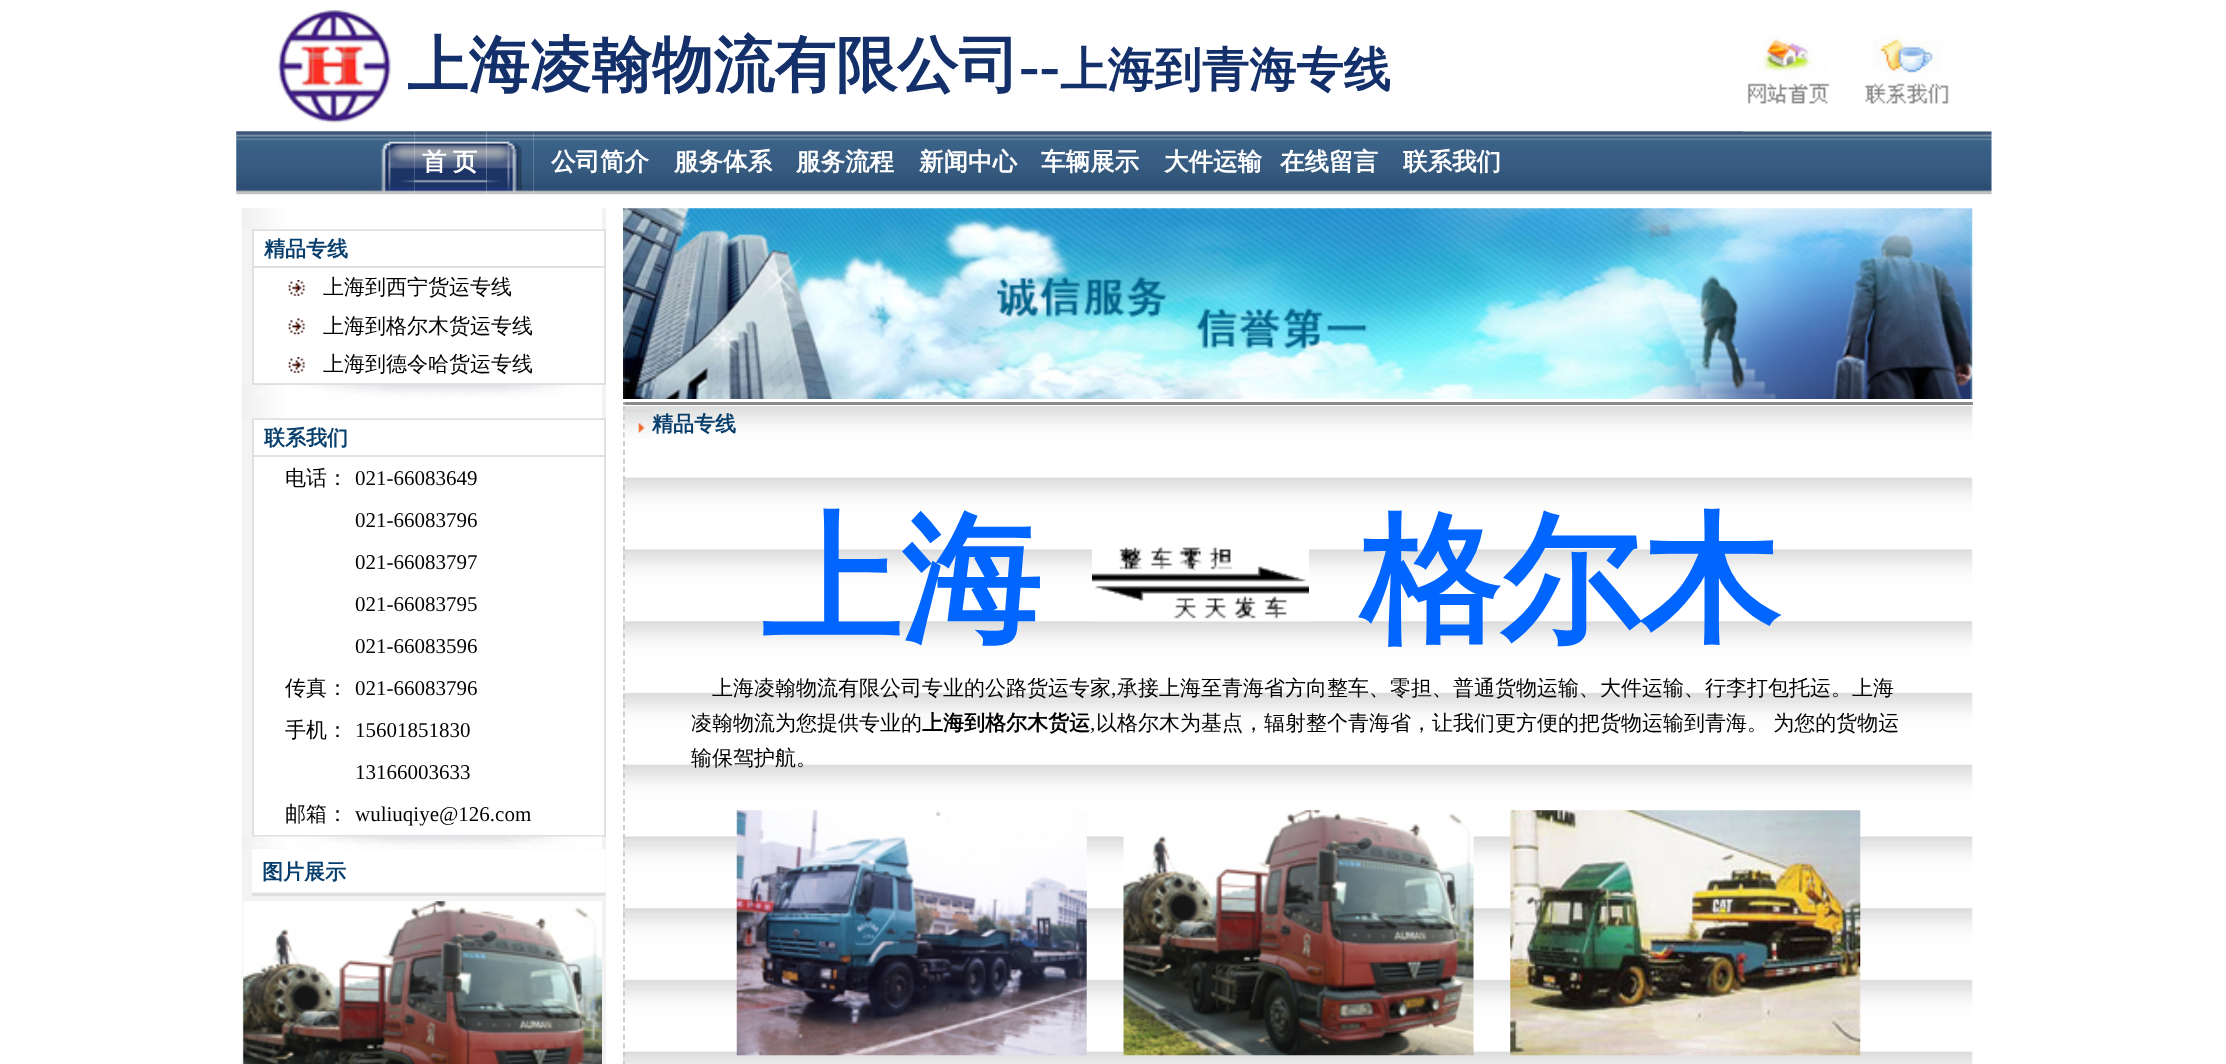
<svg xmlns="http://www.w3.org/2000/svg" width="2226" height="1064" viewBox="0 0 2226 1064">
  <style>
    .t1 { font: bold 61.25px WenQuanYi Zen Hei; fill: #13306b; }
    .t2 { font: bold 61.25px Liberation Serif; fill: #13306b; }
    .t3 { font: bold 47.25px WenQuanYi Zen Hei; fill: #13306b; }
    .t4 { font: bold 24.5px WenQuanYi Zen Hei; fill: #fff; }
    .t5 { font: bold 21px WenQuanYi Zen Hei; fill: #073e6c; }
    .t6 { font: 500 21px WenQuanYi Zen Hei; fill: #000; }
    .t7 { font: 21px Liberation Serif; fill: #000; }
    .t8 { font: bold 140px WenQuanYi Zen Hei; fill: #06f; }
    .t9 { font: bold 21px WenQuanYi Zen Hei; fill: #000; }
  </style>
  <rect width="100%" height="100%" fill="#fff"/>
  <image x="278" y="9" width="113" height="114" href="images/1.png"/>
  <text x="407" y="86" class="t1">上海凌翰物流有限公司</text>
  <text x="1019" y="86" class="t2">--</text>
  <text x="1060" y="86" class="t3">上海到青海专线</text>
  <image x="533" y="131" width="1459" height="64" href="images/7.png"/>
  <image x="1743" y="34" width="114" height="98" href="images/2.png"/>
  <image x="1856" y="35" width="136" height="97" href="images/3.png"/>
  <image x="414" y="131" width="73" height="64" href="images/5.png"/>
  <image x="236" y="131" width="179" height="64" href="images/4.png"/>
  <text x="422" y="170" word-spacing="-1" class="t4">首 页</text>
  <image x="486" y="131" width="48" height="64" href="images/6.png"/>
  <text x="551" y="170" class="t4">公司简介</text>
  <text x="674" y="170" class="t4">服务体系</text>
  <text x="796" y="170" class="t4">服务流程</text>
  <text x="919" y="170" class="t4">新闻中心</text>
  <text x="1041" y="170" class="t4">车辆展示</text>
  <text x="1164" y="170" class="t4">大件运输</text>
  <text x="1280" y="170" class="t4">在线留言</text>
  <text x="1403" y="170" class="t4">联系我们</text>
  <rect x="242" y="208" width="364" height="856" fill="#f3f3f3"/>
  <rect x="253" y="230" width="352" height="154" fill="none" stroke="#e0e0e0" stroke-width="2"/>
  <image x="241" y="208" width="361" height="22" href="images/8.png"/>
  <rect x="254" y="231" width="350" height="152" fill="#fff"/>
  <text x="264" y="256" class="t5">精品专线</text>
  <rect x="254" y="266" width="350" height="2" fill="#e0e0e0"/>
  <image x="288" y="280" width="17" height="16" href="images/9.png"/>
  <text x="323" y="294" class="t6">上海到西宁货运专线</text>
  <image x="288" y="318" width="17" height="17" href="images/10.png"/>
  <text x="323" y="333" class="t6">上海到格尔木货运专线</text>
  <image x="288" y="357" width="17" height="16" href="images/9.png"/>
  <text x="323" y="371" class="t6">上海到德令哈货运专线</text>
  <rect x="253" y="419" width="352" height="417" fill="none" stroke="#e0e0e0" stroke-width="2"/>
  <image x="241" y="385" width="361" height="34" href="images/11.png"/>
  <rect x="254" y="420" width="350" height="415" fill="#fff"/>
  <text x="264" y="445" class="t5">联系我们</text>
  <rect x="254" y="455" width="350" height="2" fill="#e0e0e0"/>
  <text x="285" y="485" class="t6">电话：</text>
  <text x="355" y="485" class="t7">021-66083649</text>
  <text x="355" y="527" class="t7">021-66083796</text>
  <text x="355" y="569" class="t7">021-66083797</text>
  <text x="355" y="611" class="t7">021-66083795</text>
  <text x="355" y="653" class="t7">021-66083596</text>
  <text x="285" y="695" class="t6">传真：</text>
  <text x="355" y="695" class="t7">021-66083796</text>
  <text x="285" y="737" class="t6">手机：</text>
  <text x="355" y="737" class="t7">15601851830</text>
  <text x="355" y="779" class="t7">13166003633</text>
  <text x="285" y="821" class="t6">邮箱：</text>
  <text x="355" y="821" class="t7">wuliuqiye@126.com</text>
  <image x="241" y="836" width="361" height="13" href="images/12.png"/>
  <image x="252" y="849" width="354" height="47" href="images/13.png"/>
  <text x="262" y="879" class="t5">图片展示</text>
  <image x="243" y="901" width="359" height="163" href="images/14.png"/>
  <image x="623" y="208" width="1350" height="191" href="images/15.png"/>
  <rect x="623" y="402" width="1350" height="3" fill="#8a8a8a"/>
  <image x="623" y="402" width="2" height="3" href="images/16.png"/>
  <image x="623" y="406" width="1350" height="658" href="images/17.png"/>
  <path d="M624 406V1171" fill="none" stroke="#cacaca" stroke-width="1.8" stroke-dasharray="5.25 3.48"/>
  <image x="624" y="409" width="29" height="29" href="images/18.png"/>
  <text x="652" y="431" class="t5">精品专线</text>
  <text x="761" y="628" class="t8">上海</text>
  <image x="1092" y="547" width="217" height="75" href="images/19.png"/>
  <text x="1360" y="628" class="t8">格尔木</text>
  <text x="712" y="695" class="t6">上海凌翰物流有限公司专业的公路货运专家</text>
  <text x="1111" y="695" class="t7">,</text>
  <text x="1117" y="695" class="t6">承接上海至青海省方向整车、零担、普通货物运输、大件运输、行李打包托运。上海</text>
  <text x="691" y="730" class="t6">凌翰物流为您提供专业的</text>
  <text x="922" y="730" class="t9">上海到格尔木货运</text>
  <text x="1090" y="730" class="t7">,</text>
  <text x="1096" y="730" word-spacing="-1" class="t6">以格尔木为基点，辐射整个青海省，让我们更方便的把货物运输到青海。 为您的货物运</text>
  <text x="691" y="765" class="t6">输保驾护航。</text>
  <image x="736" y="810" width="351" height="246" href="images/20.png"/>
  <image x="1123" y="810" width="351" height="246" href="images/21.png"/>
  <image x="1510" y="810" width="351" height="246" href="images/22.png"/>
</svg>
